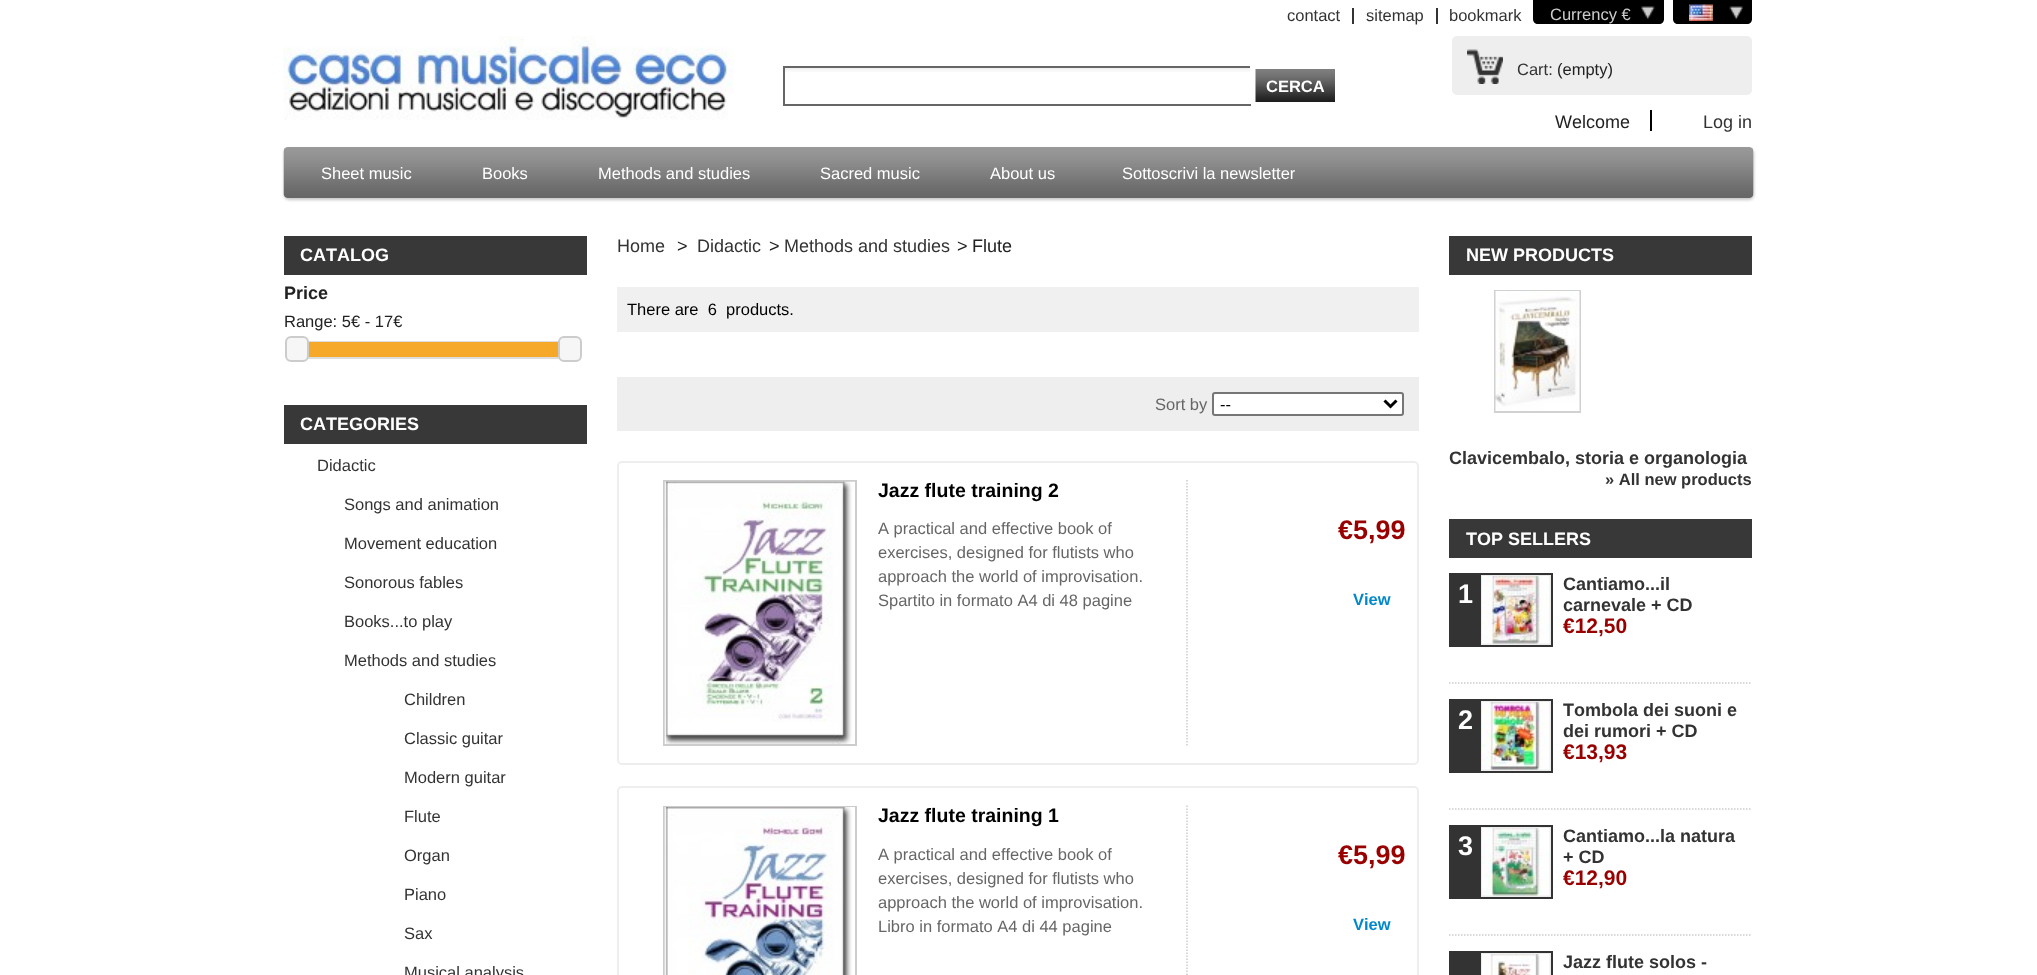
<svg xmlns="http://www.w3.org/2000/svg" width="2037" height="975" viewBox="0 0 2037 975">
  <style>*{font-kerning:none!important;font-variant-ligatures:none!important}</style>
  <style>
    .t1 { font: 16.5px Liberation Sans; fill: #333; }
    .t2 { font: 16.5px Liberation Sans; fill: #ccc; }
    .t3 { font: bold 16.5px Liberation Sans; fill: #fff; }
    .t4 { font: 16.5px Liberation Sans; fill: #222; }
    .t5 { font: 18px Liberation Sans; fill: #222; }
    .t6 { font: 18px Liberation Sans; fill: #333; }
    .t7 { font: 16.5px Liberation Sans; fill: #fff; }
    .t8 { font: bold 18px Liberation Sans; fill: #fff; }
    .t9 { font: bold 18px Liberation Sans; fill: #222; }
    .t10 { font: 16.5px Liberation Sans; fill: #000; }
    .t11 { font: 16.5px Liberation Sans; fill: #666; }
    .t12 { font: bold 19.5px Liberation Sans; fill: #000; }
    .t13 { font: bold 27px Liberation Sans; fill: #900; }
    .t14 { font: bold 16.5px Liberation Sans; fill: #08c; }
    .t15 { font: bold 18px Liberation Sans; fill: #333; }
    .t16 { font: bold 16.5px Liberation Sans; fill: #333; }
    .t17 { font: bold 27px Liberation Sans; fill: #fff; }
    .t18 { font: bold 21px Liberation Sans; fill: #900; }
  </style>
  <rect width="100%" height="100%" fill="#fff"/>
  <image x="283" y="36" width="451" height="84" href="images/1.png"/>
  <text x="1287" y="21" class="t1">contact</text>
  <rect x="1352" y="8" width="2" height="16" fill="#333"/>
  <text x="1366" y="21" class="t1">sitemap</text>
  <rect x="1436" y="8" width="2" height="16" fill="#333"/>
  <text x="1449" y="21" class="t1">bookmark</text>
  <path d="M1533 0H1664V19C1664 22 1662 24 1659 24H1538C1535 24 1533 22 1533 19Z" fill="#000"/>
  <image x="1641" y="6" width="14" height="14" href="images/2.png"/>
  <text x="1550" y="20" class="t2">Currency €</text>
  <path d="M1673 0H1752V19C1752 22 1750 24 1747 24H1678C1675 24 1673 22 1673 19Z" fill="#000"/>
  <image x="1729" y="6" width="14" height="14" href="images/3.png"/>
  <image x="1689" y="4" width="24" height="17" href="images/4.png"/>
  <image x="785" y="68" width="465" height="4" href="images/5.png"/>
  <rect x="783" y="66" width="468" height="2" fill="#666"/>
  <rect x="1250" y="66" width="1" height="2" fill="#fff"/>
  <rect x="783" y="104" width="468" height="2" fill="#666"/>
  <rect x="783" y="66" width="2" height="39" fill="#666"/>
  <image x="1255" y="69" width="80" height="33" href="images/6.png"/>
  <text x="1266" y="92" class="t3">CERCA</text>
  <rect x="1452" y="36" width="300" height="59" rx="5" fill="#eee"/>
  <image x="1467" y="49" width="36" height="35" href="images/7.png"/>
  <text x="1517" y="75" class="t1">Cart:</text>
  <text x="1557" y="75" class="t4">(empty)</text>
  <text x="1555" y="128" class="t5">Welcome</text>
  <rect x="1650" y="110" width="2" height="21" fill="#000"/>
  <text x="1703" y="128" class="t6">Log in</text>
  <rect x="284" y="149" width="1470" height="51" rx="5" fill="#c6c6c6" filter="blur(1.5px)"/>
  <image x="283" y="147" width="1471" height="51" href="images/8.png"/>
  <text x="321" y="179" class="t7">Sheet music</text>
  <text x="482" y="179" class="t7">Books</text>
  <text x="598" y="179" class="t7">Methods and studies</text>
  <text x="820" y="179" class="t7">Sacred music</text>
  <text x="990" y="179" class="t7">About us</text>
  <text x="1122" y="179" class="t7">Sottoscrivi la newsletter</text>
  <rect x="284" y="236" width="303" height="39" fill="#383838"/>
  <text x="300" y="261" class="t8">CATALOG</text>
  <text x="284" y="299" class="t9">Price</text>
  <text x="284" y="327" class="t4">Range: 5€ - 17€</text>
  <rect x="295" y="342" width="274" height="16" fill="none" stroke="#ddd" stroke-width="2"/>
  <rect x="308" y="342" width="251" height="15" fill="#f6a828"/>
  <rect x="286" y="337" width="22" height="24" rx="5" fill="#f6f6f6" stroke="#ccc" stroke-width="2"/>
  <rect x="559" y="337" width="22" height="24" rx="5" fill="#f6f6f6" stroke="#ccc" stroke-width="2"/>
  <rect x="284" y="405" width="303" height="39" fill="#383838"/>
  <text x="300" y="430" class="t8">CATEGORIES</text>
  <text x="317" y="471" class="t1">Didactic</text>
  <text x="344" y="510" class="t1">Songs and animation</text>
  <text x="344" y="549" class="t1">Movement education</text>
  <text x="344" y="588" class="t1">Sonorous fables</text>
  <text x="344" y="627" class="t1">Books...to play</text>
  <text x="344" y="666" class="t1">Methods and studies</text>
  <text x="404" y="705" class="t1">Children</text>
  <text x="404" y="744" class="t1">Classic guitar</text>
  <text x="404" y="783" class="t1">Modern guitar</text>
  <text x="404" y="822" class="t1">Flute</text>
  <text x="404" y="861" class="t1">Organ</text>
  <text x="404" y="900" class="t1">Piano</text>
  <text x="404" y="939" class="t1">Sax</text>
  <text x="404" y="978" class="t1">Musical analysis</text>
  <text x="617" y="252" class="t6">Home</text>
  <text x="677" y="252" class="t5">&gt;</text>
  <text x="697" y="252" class="t6">Didactic</text>
  <text x="769" y="252" class="t5">&gt;</text>
  <text x="784" y="252" class="t6">Methods and studies</text>
  <text x="957" y="252" class="t5">&gt;</text>
  <text x="972" y="252" class="t5">Flute</text>
  <rect x="617" y="287" width="802" height="45" fill="#f0f0f0"/>
  <text x="627" y="315" class="t10" xml:space="preserve">There are  6  products.</text>
  <rect x="617" y="377" width="802" height="54" fill="#eee"/>
  <text x="1155" y="410" class="t11">Sort by</text>
  <rect x="1213" y="393" width="190" height="22" rx="2" fill="#fff" stroke="#767676" stroke-width="2"/>
  <path d="M1384.5 400.5L1390.5 406.5L1396.5 400.5" fill="none" stroke="#000" stroke-width="3"/>
  <text x="1220" y="410" class="t10">--</text>
  <rect x="618" y="462" width="800" height="302" rx="4" fill="none" stroke="#eee" stroke-width="2"/>
  <path d="M1187 480V745.5" fill="none" stroke="#ccc" stroke-width="1.5" stroke-dasharray="1.5 1.5"/>
  <rect x="664" y="481" width="192" height="264" fill="none" stroke="#ccc" stroke-width="2"/>
  <image x="664" y="481" width="191" height="263" href="images/9.png"/>
  <text x="878" y="497" class="t12">Jazz flute training 2</text>
  <text x="878" y="534" class="t11">A practical and effective book of</text>
  <text x="878" y="558" class="t11">exercises, designed for flutists who</text>
  <text x="878" y="582" class="t11">approach the world of improvisation.</text>
  <text x="878" y="606" class="t11">Spartito in formato A4 di 48 pagine</text>
  <text x="1338" y="539" class="t13">€5,99</text>
  <text x="1353" y="605" class="t14">View</text>
  <rect x="618" y="787" width="800" height="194" rx="4" fill="none" stroke="#eee" stroke-width="2"/>
  <path d="M1187 805.5V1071" fill="none" stroke="#ccc" stroke-width="1.5" stroke-dasharray="1.5 1.5"/>
  <rect x="664" y="807" width="192" height="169" fill="none" stroke="#ccc" stroke-width="2"/>
  <image x="664" y="807" width="191" height="168" href="images/10.png"/>
  <text x="878" y="822" class="t12">Jazz flute training 1</text>
  <text x="878" y="860" class="t11">A practical and effective book of</text>
  <text x="878" y="884" class="t11">exercises, designed for flutists who</text>
  <text x="878" y="908" class="t11">approach the world of improvisation.</text>
  <text x="878" y="932" class="t11">Libro in formato A4 di 44 pagine</text>
  <text x="1338" y="864" class="t13">€5,99</text>
  <text x="1353" y="930" class="t14">View</text>
  <rect x="1449" y="236" width="303" height="39" fill="#383838"/>
  <text x="1466" y="261" class="t8">NEW PRODUCTS</text>
  <rect x="1495" y="291" width="85" height="121" fill="none" stroke="#d1d1d1" stroke-width="2"/>
  <image x="1495" y="291" width="85" height="120" href="images/11.png"/>
  <text x="1449" y="464" class="t15">Clavicembalo, storia e organologia</text>
  <text x="1605" y="485" class="t16">» All new products</text>
  <rect x="1449" y="519" width="303" height="39" fill="#383838"/>
  <text x="1466" y="545" class="t8">TOP SELLERS</text>
  <path d="M1449 683H1752" fill="none" stroke="#ccc" stroke-width="1.5" stroke-dasharray="1.5 1.5"/>
  <rect x="1449" y="573" width="104" height="74" fill="#333"/>
  <rect x="1482" y="576" width="68" height="68" fill="none" stroke="#ededed" stroke-width="2"/>
  <text x="1458" y="603" class="t17">1</text>
  <image x="1482" y="576" width="68" height="68" href="images/12.png"/>
  <text x="1563" y="590" class="t15">Cantiamo...il</text>
  <text x="1563" y="611" class="t15">carnevale + CD</text>
  <text x="1563" y="633" class="t18">€12,50</text>
  <path d="M1449 809H1752" fill="none" stroke="#ccc" stroke-width="1.5" stroke-dasharray="1.5 1.5"/>
  <rect x="1449" y="699" width="104" height="74" fill="#333"/>
  <rect x="1482" y="702" width="68" height="68" fill="none" stroke="#ededed" stroke-width="2"/>
  <text x="1458" y="729" class="t17">2</text>
  <image x="1482" y="702" width="68" height="68" href="images/13.png"/>
  <text x="1563" y="716" class="t15">Tombola dei suoni e</text>
  <text x="1563" y="737" class="t15">dei rumori + CD</text>
  <text x="1563" y="759" class="t18">€13,93</text>
  <path d="M1449 935H1752" fill="none" stroke="#ccc" stroke-width="1.5" stroke-dasharray="1.5 1.5"/>
  <rect x="1449" y="825" width="104" height="74" fill="#333"/>
  <rect x="1482" y="828" width="68" height="68" fill="none" stroke="#ededed" stroke-width="2"/>
  <text x="1458" y="855" class="t17">3</text>
  <image x="1482" y="828" width="68" height="68" href="images/14.png"/>
  <text x="1563" y="842" class="t15">Cantiamo...la natura</text>
  <text x="1563" y="863" class="t15">+ CD</text>
  <text x="1563" y="885" class="t18">€12,90</text>
  <rect x="1449" y="951" width="104" height="24" fill="#333"/>
  <rect x="1482" y="954" width="68" height="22" fill="none" stroke="#ededed" stroke-width="2"/>
  <image x="1482" y="954" width="68" height="21" href="images/15.png"/>
  <text x="1563" y="968" class="t15">Jazz flute solos -</text>
</svg>
